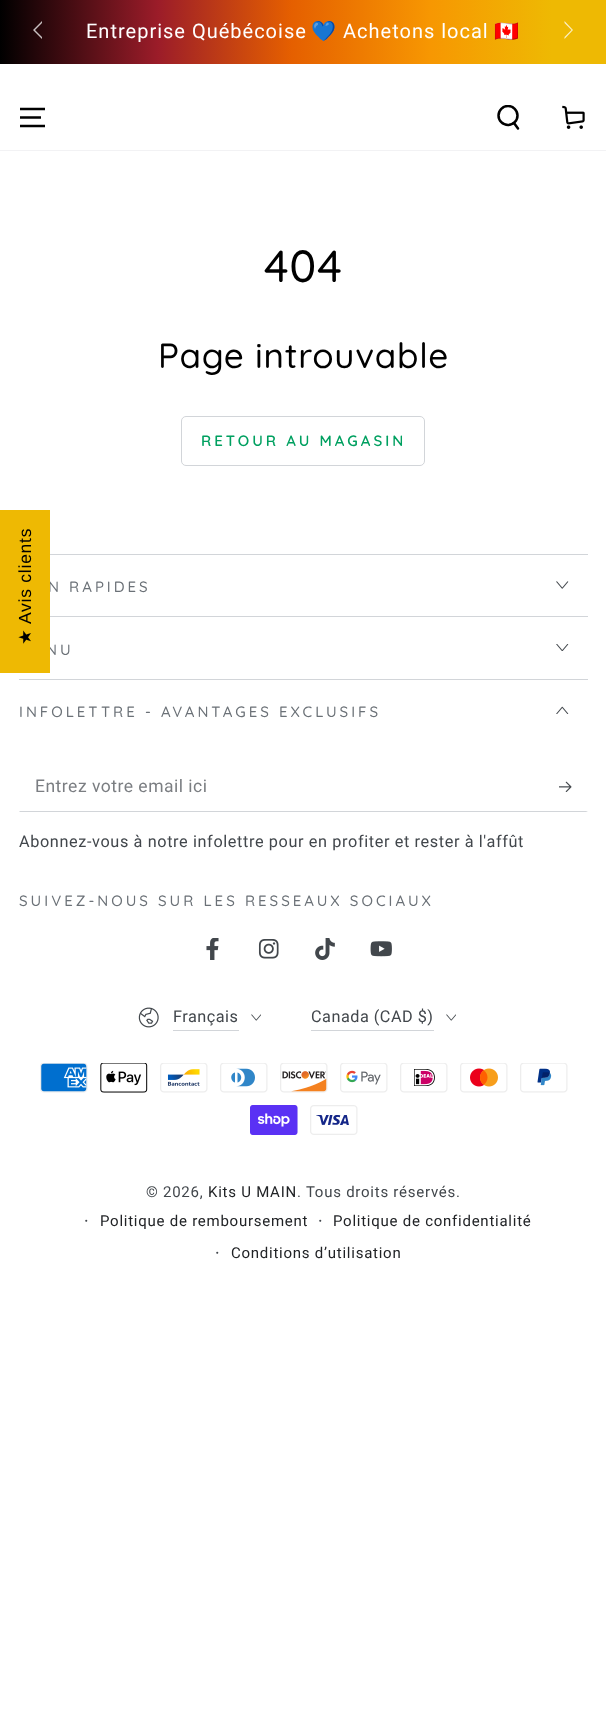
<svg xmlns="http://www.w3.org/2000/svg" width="606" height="1709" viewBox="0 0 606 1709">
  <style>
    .t1 { font: 20px Roboto; letter-spacing: 1px; fill: #fff; }
    .t2 { font: 20px Noto Color Emoji; letter-spacing: 1px; fill: #fff; }
    .t3 { font: 500 45px Quicksand; letter-spacing: 0.75px; fill: #000; }
    .t4 { font: 500 35px Quicksand; letter-spacing: 0.75px; fill: #000; }
    .t5 { font: 600 15px Quicksand; letter-spacing: 3px; fill: #00a060; }
    .t6 { font: 500 15px Quicksand; letter-spacing: 3px; fill: #6b7177; }
    .t7 { font: 17.5px Roboto; letter-spacing: 0.5px; fill: #7b7e82; }
    .t8 { font: 16.25px Roboto; letter-spacing: 0.62px; fill: #42474c; }
    .t9 { font: 16.25px Roboto; letter-spacing: 0.5px; fill: #42474c; }
    .t10 { font: 15px Roboto; letter-spacing: 0.75px; fill: #42474c; }
    .t11 { font: 15px Roboto; letter-spacing: 0.75px; fill: #212326; }
    .t12 { font: 17.5px Roboto; letter-spacing: 0.75px; fill: #42474c; }
    .t13 { font: 17.5px Liberation Sans; letter-spacing: 0.75px; fill: #000; }
    .t14 { font: 17.5px DejaVu Sans; letter-spacing: 0.75px; fill: #000; }
  </style>
  <defs>
    <linearGradient id="g1" gradientUnits="userSpaceOnUse" x1="0" y1="32" x2="606" y2="32"><stop offset="0" stop-color="#000"/><stop offset="0.26" stop-color="#9b1c29"/><stop offset="0.48" stop-color="#e55f00"/><stop offset="0.71" stop-color="#f79702"/><stop offset="0.91" stop-color="#eeb903"/></linearGradient>
    <clipPath id="clip1"><rect x="496" y="105" width="25" height="25"/></clipPath>
  </defs>
  <rect width="100%" height="100%" fill="#fff"/>
  <rect x="0" y="0" width="606" height="64" fill="url(#g1)"/>
  <text x="86" y="38" class="t1">Entreprise Québécoise</text>
  <text x="311" y="38" class="t2">💙</text>
  <text x="343" y="38" class="t1">Achetons local</text>
  <text x="494" y="38" class="t2">🇨🇦</text>
  <path d="M33 30L42 39V37L35 30L42 23V21Z" fill="#ffffffbf" fill-rule="evenodd"/>
  <path d="M573 30L564.5 39V37L571.5 30L564.5 23V21Z" fill="#fbeec0" fill-rule="evenodd"/>
  <rect x="0" y="150" width="606" height="1" fill="#f2f2f4"/>
  <path d="M20 126H45M20 117.5H41M20 109H45" fill="none" stroke="#000" stroke-width="2.3"/>
  <g clip-path="url(#clip1)">
    <circle cx="508" cy="115.5" r="9.5" fill="none" stroke="#000" stroke-width="2.5"/>
  </g>
  <path d="M514 123L518 128.5" fill="none" stroke="#000" stroke-width="2.5" stroke-linecap="round"/>
  <image x="562" y="105" width="23" height="24" href="images/1.png"/>
  <text x="264" y="282" class="t3">404</text>
  <text x="158" y="368" class="t4">Page introuvable</text>
  <rect x="181.5" y="416.5" width="243" height="49" rx="4.5" fill="none" stroke="#d2d5d9"/>
  <text x="201" y="446" class="t5">RETOUR AU MAGASIN</text>
  <rect x="50" y="554" width="538" height="1" fill="#d2d5d9"/>
  <rect x="50" y="616" width="538" height="1" fill="#d2d5d9"/>
  <text x="48" y="592" class="t6">N RAPIDES</text>
  <image x="556" y="581" width="13" height="8" href="images/2.png"/>
  <rect x="19" y="679" width="569" height="1" fill="#d2d5d9"/>
  <text x="46" y="655" class="t6">NU</text>
  <image x="556" y="644" width="13" height="7" href="images/3.png"/>
  <text x="19" y="717" class="t6">INFOLETTRE - AVANTAGES EXCLUSIFS</text>
  <image x="556" y="706" width="13" height="8" href="images/4.png"/>
  <path d="M588 812H19L20 811H586Z" fill="#d2d5d9"/>
  <text x="35" y="792" class="t7">Entrez votre email ici</text>
  <image x="559" y="781" width="13" height="11" href="images/5.png"/>
  <text x="19" y="847" class="t8">Abonnez-vous à notre infolettre pour en profiter et rester à l'affût</text>
  <text x="19" y="906" class="t6">SUIVEZ-NOUS SUR LES RESSEAUX SOCIAUX</text>
  <image x="206" y="938" width="13" height="22" href="images/6.png"/>
  <image x="258" y="939" width="21" height="20" href="images/7.png"/>
  <image x="315" y="938" width="20" height="22" href="images/8.png"/>
  <image x="370" y="941" width="22" height="16" href="images/9.png"/>
  <image x="138" y="1007" width="21" height="21" href="images/10.png"/>
  <rect x="173" y="1030" width="66" height="1" fill="#d2d5d9"/>
  <text x="173" y="1022" class="t9">Français</text>
  <image x="251" y="1014" width="10" height="7" href="images/11.png"/>
  <rect x="311" y="1030" width="123" height="1" fill="#d2d5d9"/>
  <text x="311" y="1022" class="t9">Canada (CAD $)</text>
  <image x="446" y="1014" width="10" height="7" href="images/11.png"/>
  <image x="40" y="1063" width="48" height="30" href="images/12.png"/>
  <image x="100" y="1063" width="48" height="30" href="images/13.png"/>
  <image x="160" y="1063" width="48" height="30" href="images/14.png"/>
  <image x="220" y="1063" width="48" height="30" href="images/15.png"/>
  <image x="280" y="1063" width="48" height="30" href="images/16.png"/>
  <image x="340" y="1063" width="48" height="30" href="images/17.png"/>
  <image x="400" y="1063" width="48" height="30" href="images/18.png"/>
  <image x="460" y="1063" width="48" height="30" href="images/19.png"/>
  <image x="520" y="1063" width="48" height="30" href="images/20.png"/>
  <image x="250" y="1105" width="48" height="30" href="images/21.png"/>
  <image x="310" y="1105" width="48" height="30" href="images/22.png"/>
  <text x="146" y="1197" class="t10">© 2026,</text>
  <text x="208" y="1197" class="t11">Kits U MAIN</text>
  <text x="297" y="1197" class="t10">. Tous droits réservés.</text>
  <text x="84" y="1227" class="t12">·</text>
  <text x="100" y="1226" class="t11">Politique de remboursement</text>
  <text x="318" y="1227" class="t12">·</text>
  <text x="333" y="1226" class="t11">Politique de confidentialité</text>
  <text x="215" y="1259" class="t12">·</text>
  <text x="231" y="1258" class="t11">Conditions d’utilisation</text>
  <rect x="0" y="510" width="50" height="163" fill="#eeb903"/>
  <text x="31" y="624" transform="rotate(-90 31 624)" class="t13">Avis clients</text>
  <text x="31" y="645" transform="rotate(-90 31 645)" class="t14">★</text>
</svg>
